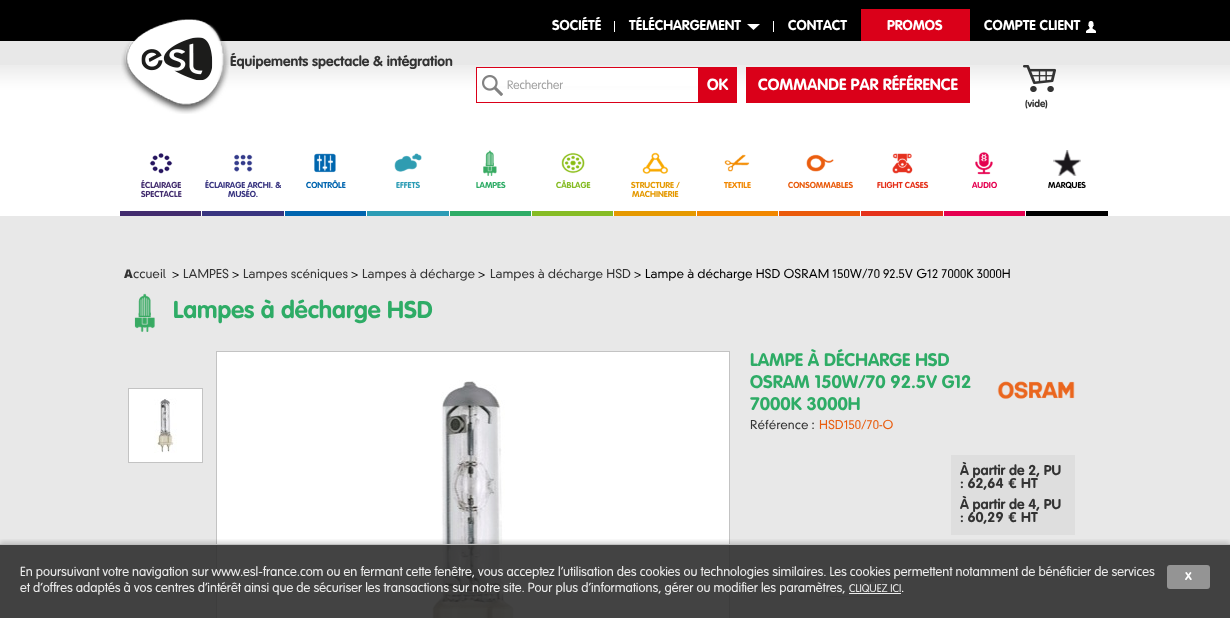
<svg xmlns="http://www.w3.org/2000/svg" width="1230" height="618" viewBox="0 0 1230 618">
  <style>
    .t1 { font: bold 14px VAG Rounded; fill: #fff; }
    .t2 { font: bold 14px VAG Rounded; fill: #333; }
    .t3 { font: 12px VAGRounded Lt; fill: #9f9f9f; }
    .t4 { font: bold 16px VAG Rounded; fill: #fff; }
    .t5 { font: bold 10px VAG Rounded; fill: #333; }
    .t6 { font: bold 8.5px VAG Rounded; fill: #422c6e; }
    .t7 { font: bold 8.5px VAG Rounded; fill: #393580; }
    .t8 { font: bold 8.5px VAG Rounded; fill: #0065af; }
    .t9 { font: bold 8.5px VAG Rounded; fill: #2c9cb5; }
    .t10 { font: bold 8.5px VAG Rounded; fill: #2eac66; }
    .t11 { font: bold 8.5px VAG Rounded; fill: #86bc24; }
    .t12 { font: bold 8.5px VAG Rounded; fill: #e59900; }
    .t13 { font: bold 8.5px VAG Rounded; fill: #f18700; }
    .t14 { font: bold 8.5px VAG Rounded; fill: #e95d0f; }
    .t15 { font: bold 8.5px VAG Rounded; fill: #e5321b; }
    .t16 { font: bold 8.5px VAG Rounded; fill: #e50050; }
    .t17 { font: bold 8.5px VAG Rounded; fill: #000; }
    .t18 { font: 900 12px Noto Sans; fill: #333; }
    .t19 { font: 300 12px 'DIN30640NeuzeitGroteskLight'; fill: #333; }
    .t20 { font: 300 12px 'DIN30640NeuzeitGroteskLight'; fill: #000; }
    .t21 { font: bold 24px VAG Rounded; fill: #2eac66; }
    .t22 { font: bold 18px VAG Rounded; fill: #2eac66; }
    .t23 { font: 300 12px 'DIN30640NeuzeitGroteskLight'; fill: #e95d0f; }
    .t24 { font: 13px VAGRounded Lt; fill: #ececec; }
    .t25 { font: 11px VAGRounded Lt; fill: #ececec; }
    .t26 { font: 13px VAGRounded Lt; fill: #fff; }
    .t27 { font: bold 11px VAG Rounded; fill: #fff; }
  </style>
  <defs>
    <clipPath id="clip1"><path d="M828 571H858V597H828C826.5 597 825 595.5 825 594V574C825 572.5 826.5 571 828 571Z"/></clipPath>
    <linearGradient id="g1" gradientUnits="userSpaceOnUse" x1="842" y1="596" x2="842" y2="572"><stop offset="0" stop-color="#eee"/><stop offset="0.3" stop-color="#fff"/></linearGradient>
    <clipPath id="clip2"><path d="M858 571H882C883.5 571 885 572.5 885 574V594C885 595.5 883.5 597 882 597H858Z"/></clipPath>
    <linearGradient id="g2" gradientUnits="userSpaceOnUse" x1="871" y1="596" x2="871" y2="572"><stop offset="0" stop-color="#eee"/><stop offset="0.3" stop-color="#fff"/></linearGradient>
    <clipPath id="clip3"><rect x="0" y="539" width="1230" height="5"/></clipPath>
  </defs>
  <rect width="100%" height="100%" fill="#e8e8e8"/>
  <rect x="0" y="0" width="1230" height="41" fill="#000"/>
  <rect x="614" y="21" width="1" height="11" fill="#fff"/>
  <text x="552" y="30" class="t1">SOCIÉTÉ</text>
  <rect x="773" y="21" width="1" height="11" fill="#fff"/>
  <image x="747" y="24" width="13" height="6" href="images/1.png"/>
  <text x="629" y="30" class="t1">TÉLÉCHARGEMENT</text>
  <text x="788" y="30" class="t1">CONTACT</text>
  <rect x="861" y="9" width="109" height="32" fill="#da0019"/>
  <text x="887" y="30" class="t1">PROMOS</text>
  <image x="1086" y="21" width="10" height="12" href="images/2.png"/>
  <text x="984" y="30" class="t1">COMPTE CLIENT</text>
  <image x="0" y="65" width="1230" height="85" href="images/3.png"/>
  <image x="121" y="19" width="108" height="95" href="images/4.png"/>
  <text x="230" y="66" class="t2">Équipements spectacle &amp; intégration</text>
  <rect x="477" y="68" width="221" height="18" fill="#fff"/>
  <image x="482" y="75" width="21" height="21" href="images/5.png"/>
  <rect x="476.5" y="67.5" width="222" height="35" fill="none" stroke="#da0019"/>
  <text x="507" y="89" class="t3">Rechercher</text>
  <rect x="699" y="67" width="38" height="36" fill="#da0019"/>
  <text x="707" y="90" class="t4">OK</text>
  <rect x="746" y="67" width="224" height="36" fill="#da0019"/>
  <text x="758" y="90" class="t4">COMMANDE PAR RÉFÉRENCE</text>
  <image x="1023" y="65" width="33" height="27" href="images/6.png"/>
  <text x="1025" y="107" class="t5">(vide)</text>
  <rect x="0" y="150" width="1230" height="66" fill="#fff"/>
  <rect x="120" y="211" width="81" height="5" fill="#422c6e"/>
  <image x="149" y="153" width="24" height="21" href="images/7.png"/>
  <text x="141" y="188" class="t6">ÉCLAIRAGE</text>
  <text x="141" y="197" class="t6">SPECTACLE</text>
  <rect x="202" y="211" width="82" height="5" fill="#393580"/>
  <image x="234" y="154" width="19" height="18" href="images/8.png"/>
  <text x="205" y="188" class="t7">ÉCLAIRAGE ARCHI. &amp;</text>
  <text x="228" y="197" class="t7">MUSÉO.</text>
  <rect x="285" y="211" width="81" height="5" fill="#0065af"/>
  <image x="314" y="153" width="22" height="20" href="images/9.png"/>
  <text x="306" y="188" class="t8">CONTRÔLE</text>
  <rect x="367" y="211" width="82" height="5" fill="#2c9cb5"/>
  <image x="394" y="153" width="28" height="19" href="images/10.png"/>
  <text x="396" y="188" class="t9">EFFETS</text>
  <rect x="450" y="211" width="81" height="5" fill="#2eac66"/>
  <image x="483" y="150" width="14" height="26" href="images/11.png"/>
  <text x="476" y="188" class="t10">LAMPES</text>
  <rect x="532" y="211" width="81" height="5" fill="#86bc24"/>
  <image x="561" y="152" width="24" height="22" href="images/12.png"/>
  <text x="556" y="188" class="t11">CÂBLAGE</text>
  <rect x="614" y="211" width="82" height="5" fill="#e59900"/>
  <image x="642" y="152" width="27" height="22" href="images/13.png"/>
  <text x="631" y="188" class="t12">STRUCTURE /</text>
  <text x="632" y="197" class="t12">MACHINERIE</text>
  <rect x="697" y="211" width="81" height="5" fill="#f18700"/>
  <image x="724" y="154" width="26" height="18" href="images/14.png"/>
  <text x="724" y="188" class="t13">TEXTILE</text>
  <rect x="779" y="211" width="81" height="5" fill="#ea5a0b"/>
  <image x="806" y="154" width="28" height="18" href="images/15.png"/>
  <text x="788" y="188" class="t14">CONSOMMABLES</text>
  <rect x="861" y="211" width="82" height="5" fill="#e5321b"/>
  <image x="892" y="153" width="21" height="21" href="images/16.png"/>
  <text x="877" y="188" class="t15">FLIGHT CASES</text>
  <rect x="944" y="211" width="81" height="5" fill="#e50050"/>
  <image x="975" y="152" width="18" height="23" href="images/17.png"/>
  <text x="972" y="188" class="t16">AUDIO</text>
  <rect x="1026" y="211" width="82" height="5" fill="#000"/>
  <image x="1053" y="150" width="28" height="26" href="images/18.png"/>
  <text x="1048" y="188" class="t17">MARQUES</text>
  <text x="124" y="278" class="t18">A</text>
  <text x="133" y="278" class="t19">ccueil</text>
  <text x="172" y="278" class="t20">&gt;</text>
  <text x="183" y="278" class="t19">LAMPES</text>
  <text x="232" y="278" class="t20">&gt;</text>
  <text x="243" y="278" class="t19">Lampes scéniques</text>
  <text x="351" y="278" class="t20">&gt;</text>
  <text x="362" y="278" class="t19">Lampes à décharge</text>
  <text x="478" y="278" class="t20">&gt;</text>
  <text x="490" y="278" class="t19">Lampes à décharge HSD</text>
  <text x="634" y="278" class="t20">&gt;</text>
  <text x="645" y="278" class="t20">Lampe à décharge HSD OSRAM 150W/70 92.5V G12 7000K 3000H</text>
  <image x="134" y="293" width="21" height="39" href="images/19.png"/>
  <text x="173" y="318" class="t21">Lampes à décharge HSD</text>
  <rect x="128.5" y="388.5" width="74" height="74" fill="#fff" stroke="#c3c3c3"/>
  <image x="154" y="398" width="23" height="55" href="images/20.png"/>
  <rect x="216.5" y="351.5" width="513" height="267" fill="#fff" stroke="#c3c3c3"/>
  <image x="431" y="380" width="84" height="238" href="images/21.png"/>
  <text x="750" y="366" class="t22">LAMPE À DÉCHARGE HSD</text>
  <text x="750" y="388" class="t22">OSRAM 150W/70 92.5V G12</text>
  <text x="750" y="410" class="t22">7000K 3000H</text>
  <text x="750" y="429" class="t19">Référence :</text>
  <text x="819" y="429" class="t23">HSD150/70-O</text>
  <image x="997" y="381" width="78" height="18" href="images/22.png"/>
  <rect x="951" y="455" width="124" height="80" fill="#dedede"/>
  <text x="960" y="475" class="t2">À partir de 2, PU</text>
  <text x="960" y="488" class="t2">: 62,64 € HT</text>
  <text x="960" y="509" class="t2">À partir de 4, PU</text>
  <text x="960" y="522" class="t2">: 60,29 € HT</text>
  <g clip-path="url(#clip1)">
    <rect x="825" y="572" width="32" height="24" fill="url(#g1)"/>
  </g>
  <path d="M828 571.5H857.5V596.5H828C826.5 596.5 825.5 595.5 825.5 594V574C825.5 572.5 826.5 571.5 828 571.5Z" fill="none" stroke="#ccc"/>
  <g clip-path="url(#clip2)">
    <rect x="858" y="572" width="27" height="24" fill="url(#g2)"/>
  </g>
  <path d="M858 571H882C883.5 571 885 572.5 885 574V594C885 595.5 883.5 597 882 597H858ZM858 572H882C883 572 884 573 884 574V594C884 595 883 596 882 596H858Z" fill="#ccc" fill-rule="evenodd"/>
  <image x="866" y="577" width="9" height="5" href="images/23.png"/>
  <image x="866" y="587" width="9" height="5" href="images/24.png"/>
  <g clip-path="url(#clip3)">
    <rect x="0" y="542" width="1230" height="74" fill="#0000002e" filter="blur(2.5px)"/>
  </g>
  <rect x="0" y="544" width="1230" height="74" fill="#2f2f2fe6"/>
  <rect x="0" y="544" width="1230" height="1" fill="#cececee6"/>
  <text x="20" y="576" class="t24">En poursuivant votre navigation sur www.esl-france.com ou en fermant cette fenêtre, vous acceptez l’utilisation des cookies ou technologies similaires. Les cookies permettent notamment de bénéficier de services</text>
  <text x="20" y="592" class="t24">et d'offres adaptés à vos centres d'intérêt ainsi que de sécuriser les transactions sur notre site. Pour plus d'informations, gérer ou modifier les paramètres,</text>
  <text x="849" y="592" class="t25">CLIQUEZ ICI</text>
  <rect x="849" y="593" width="52" height="1" fill="#ffffffe6"/>
  <text x="901" y="592" class="t26">.</text>
  <rect x="1167" y="565" width="43" height="24" rx="3" fill="#949494"/>
  <text x="1185" y="580" class="t27">X</text>
</svg>
